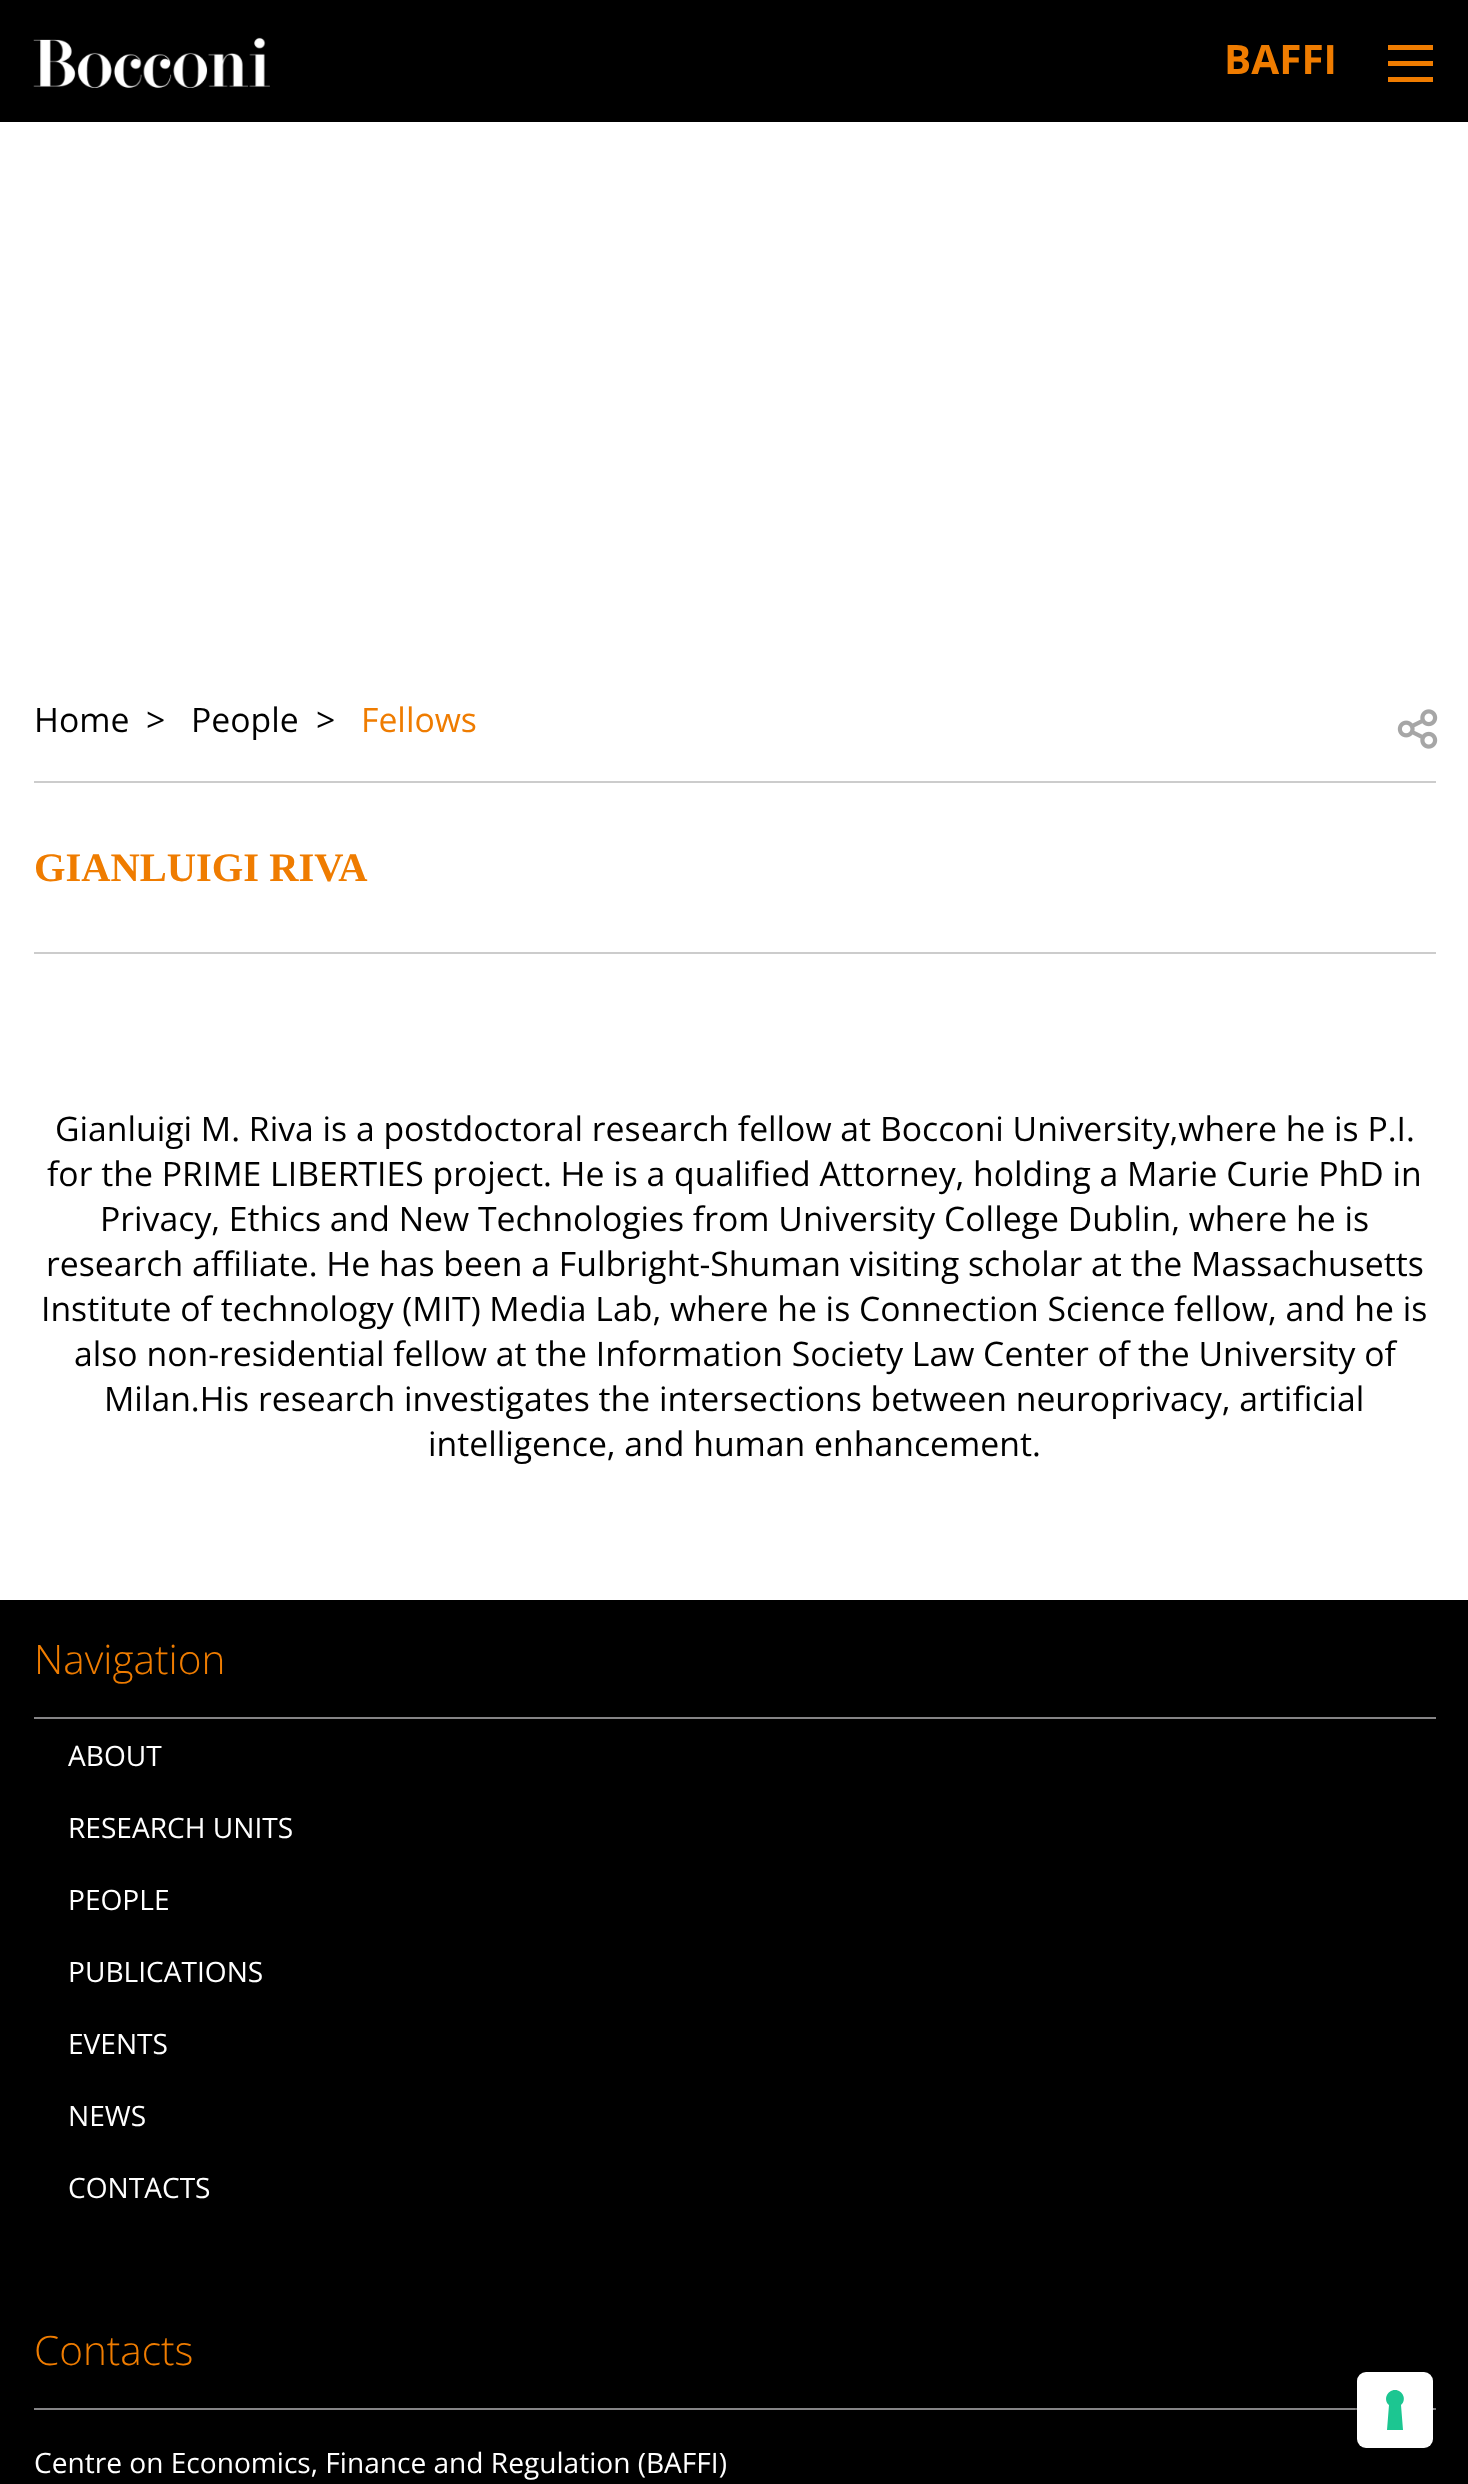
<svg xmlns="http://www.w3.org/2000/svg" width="1468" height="2484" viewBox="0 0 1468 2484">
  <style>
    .t1 { font: bold 40.5px Open Sans; fill: #ef7c00; }
    .t2 { font: 33.75px Open Sans; fill: #000; }
    .t3 { font: 33.75px Open Sans; fill: #ef7c00; }
    .t4 { font: bold 40.5px Liberation Serif; fill: #ef7c00; }
    .t5 { font: 300 40.5px Open Sans; fill: #ef7c00; }
    .t6 { font: 28.1px Open Sans; fill: #fff; }
  </style>
  <rect width="100%" height="100%" fill="#fff"/>
  <rect x="0" y="0" width="1468" height="122" fill="#000"/>
  <image x="33" y="37" width="237" height="51" href="images/1.png"/>
  <text x="1224" y="74" class="t1">BAFFI</text>
  <rect x="1388" y="45" width="45" height="5" fill="#ef7c00"/>
  <rect x="1388" y="61" width="45" height="5" fill="#ef7c00"/>
  <rect x="1388" y="77" width="45" height="5" fill="#ef7c00"/>
  <rect x="34" y="781" width="1402" height="2" fill="#ccc"/>
  <text x="34" y="732" class="t2">Home</text>
  <text x="146" y="732" class="t2">&gt;</text>
  <text x="191" y="732" class="t2">People</text>
  <text x="316" y="732" class="t2">&gt;</text>
  <text x="361" y="732" class="t3">Fellows</text>
  <image x="1397" y="709" width="41" height="40" href="images/2.png"/>
  <rect x="34" y="952" width="1402" height="2" fill="#ccc"/>
  <text x="34" y="881" class="t4">GIANLUIGI RIVA</text>
  <text x="55" y="1141" class="t2">Gianluigi M. Riva is a postdoctoral research fellow at Bocconi University,where he is P.I.</text>
  <text x="47" y="1186" class="t2">for the PRIME LIBERTIES project. He is a qualified Attorney, holding a Marie Curie PhD in</text>
  <text x="100" y="1231" class="t2">Privacy, Ethics and New Technologies from University College Dublin, where he is</text>
  <text x="46" y="1276" class="t2">research affiliate. He has been a Fulbright-Shuman visiting scholar at the Massachusetts</text>
  <text x="41" y="1321" class="t2">Institute of technology (MIT) Media Lab, where he is Connection Science fellow, and he is</text>
  <text x="74" y="1366" class="t2">also non-residential fellow at the Information Society Law Center of the University of</text>
  <text x="104" y="1411" class="t2">Milan.His research investigates the intersections between neuroprivacy, artificial</text>
  <text x="428" y="1456" class="t2">intelligence, and human enhancement.</text>
  <rect x="0" y="1600" width="1468" height="884" fill="#000"/>
  <rect x="34" y="1717" width="1402" height="2" fill="#858486"/>
  <text x="34" y="1674" class="t5">Navigation</text>
  <text x="68" y="1766" class="t6">ABOUT</text>
  <text x="68" y="1838" class="t6">RESEARCH UNITS</text>
  <text x="68" y="1910" class="t6">PEOPLE</text>
  <text x="68" y="1982" class="t6">PUBLICATIONS</text>
  <text x="68" y="2054" class="t6">EVENTS</text>
  <text x="68" y="2126" class="t6">NEWS</text>
  <text x="68" y="2198" class="t6">CONTACTS</text>
  <rect x="34" y="2408" width="1402" height="2" fill="#858486"/>
  <text x="34" y="2365" class="t5">Contacts</text>
  <text x="34" y="2473" class="t6">Centre on Economics, Finance and Regulation (BAFFI)</text>
  <rect x="1356" y="2370" width="79" height="79" rx="10" fill="none" stroke="#00000026" stroke-width="2"/>
  <rect x="1357" y="2372" width="76" height="76" rx="9" fill="#fff"/>
  <path d="M1395 2390C1403 2390 1407 2400 1401 2405L1403 2430H1387L1389 2405C1383 2400 1387 2390 1395 2390Z" fill="#1cc691" fill-rule="evenodd"/>
</svg>
